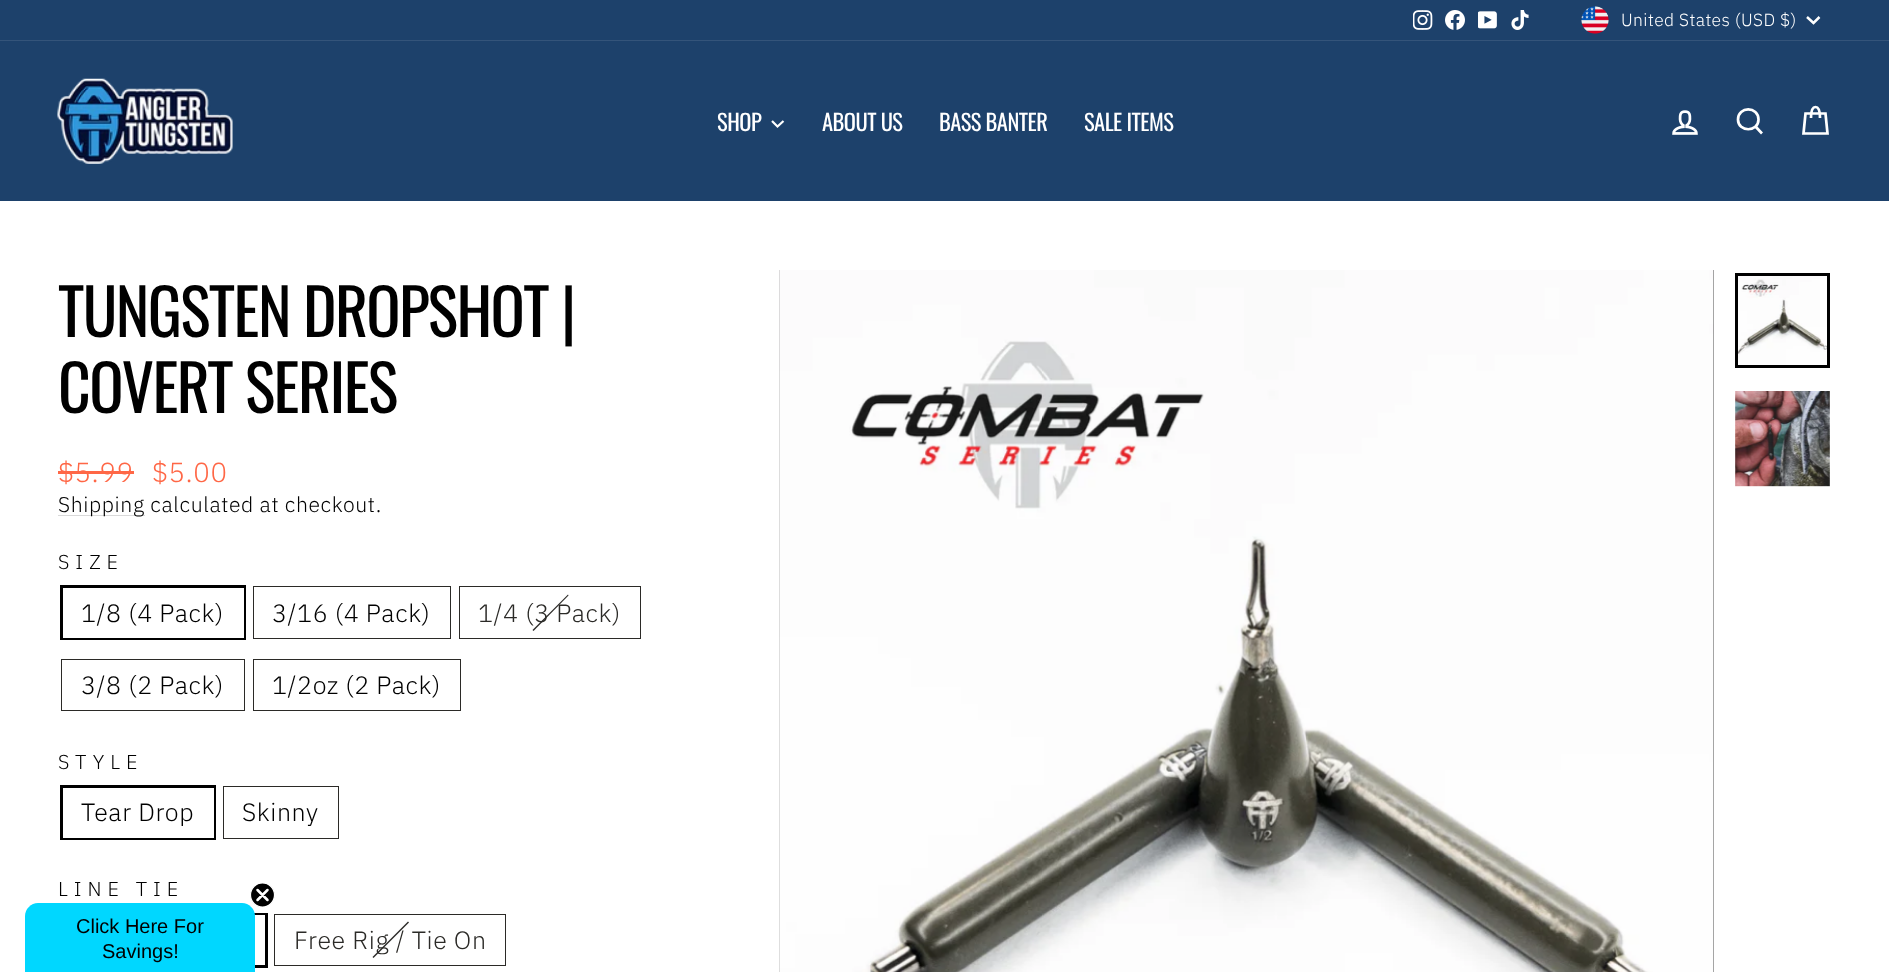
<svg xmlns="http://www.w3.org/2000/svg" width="1889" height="972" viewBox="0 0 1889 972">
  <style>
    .t1 { font: 300 17.5px IBM Plex Sans; letter-spacing: 0.4px; fill: #fff; }
    .t2 { font: 22.5px Oswald; letter-spacing: -0.5px; fill: #fff; }
    .t3 { font: 63.75px Oswald; letter-spacing: -1.6px; fill: #000; }
    .t4 { font: 300 27.5px IBM Plex Sans; letter-spacing: 0.6px; fill: #ff6746; }
    .t5 { font: 300 21.25px IBM Plex Sans; letter-spacing: 0.6px; fill: #000; }
    .t6 { font: 300 20px IBM Plex Sans; letter-spacing: 6px; fill: #000; }
    .t7 { font: 300 25px IBM Plex Sans; letter-spacing: 0.6px; fill: #000; }
    .t8 { font: 300 25px IBM Plex Sans; letter-spacing: 0.6px; fill: #2b2a27; }
    .t9 { font: 20px Liberation Sans; fill: #000; }
  </style>
  <defs>
    <clipPath id="clip1"><rect x="250" y="883" width="25" height="25"/></clipPath>
  </defs>
  <rect width="100%" height="100%" fill="#fff"/>
  <rect x="0" y="0" width="1889" height="40" fill="#1d416b"/>
  <image x="1413" y="10" width="20" height="20" href="images/1.png"/>
  <image x="1445" y="10" width="20" height="20" href="images/2.png"/>
  <image x="1478" y="11" width="19" height="18" href="images/3.png"/>
  <image x="1511" y="10" width="18" height="20" href="images/4.png"/>
  <image x="1581" y="6" width="28" height="28" href="images/5.png"/>
  <text x="1621" y="26" class="t1">United States (USD $)</text>
  <path d="M1807 17L1813.5 23L1819.5 17" fill="none" stroke="#fff" stroke-width="2.5"/>
  <rect x="0" y="41" width="1889" height="160" fill="#1d416b"/>
  <rect x="0" y="40" width="1889" height="1" fill="#34547a"/>
  <image x="57" y="78" width="176" height="86" href="images/6.png"/>
  <text x="717" y="131" class="t2">SHOP</text>
  <path d="M772 121L777.5 126.5L783.5 121" fill="none" stroke="#fff" stroke-width="2.2"/>
  <text x="822" y="131" class="t2">ABOUT US</text>
  <text x="939" y="131" class="t2">BASS BANTER</text>
  <text x="1084" y="131" class="t2">SALE ITEMS</text>
  <image x="1672" y="110" width="26" height="25" href="images/7.png"/>
  <path d="M1758.5 119.5C1758.5 132.5 1738 132.5 1738 119.5C1738 106 1758.5 106 1758.5 119.5ZM1762 133.5L1755.5 126.5" fill="none" stroke="#fff" stroke-width="2.7"/>
  <path d="M1811 118C1811 109.5 1813 107 1815.5 107C1818 107 1820 109.5 1820 118M1805.5 113.5H1825.5L1827.5 133.5H1803.5Z" fill="none" stroke="#fff" stroke-width="2.7"/>
  <text x="58" y="337" class="t3">TUNGSTEN DROPSHOT |</text>
  <text x="58" y="413" class="t3">COVERT SERIES</text>
  <text x="58" y="482" class="t4">$5.99</text>
  <rect x="58" y="471" width="76" height="3" fill="#ff6746"/>
  <text x="152" y="482" class="t4">$5.00</text>
  <rect x="58" y="515" width="87" height="1" fill="#d9d9d9"/>
  <text x="58" y="512" class="t5">Shipping calculated at checkout.</text>
  <text x="58" y="569" class="t6">SIZE</text>
  <rect x="61.5" y="586.5" width="183" height="52" fill="none" stroke="#000" stroke-width="3"/>
  <rect x="63" y="588" width="181" height="50" fill="#fff"/>
  <text x="81" y="622" class="t7">1/8 (4 Pack)</text>
  <rect x="253.5" y="586.5" width="197" height="52" fill="none" stroke="#2b2a27"/>
  <text x="272" y="622" class="t7">3/16 (4 Pack)</text>
  <rect x="459.5" y="586.5" width="181" height="52" fill="none" stroke="#2b2a27"/>
  <path d="M568 594.5L568.5 595.5L533.5 631L532.5 630Z" fill="#2b2a27"/>
  <text x="478" y="622" class="t8">1/4 (3 Pack)</text>
  <rect x="61.5" y="659.5" width="183" height="51" fill="none" stroke="#2b2a27"/>
  <text x="81" y="694" class="t7">3/8 (2 Pack)</text>
  <rect x="253.5" y="659.5" width="207" height="51" fill="none" stroke="#2b2a27"/>
  <text x="272" y="694" class="t7">1/2oz (2 Pack)</text>
  <text x="58" y="769" class="t6">STYLE</text>
  <rect x="61.5" y="786.5" width="153" height="52" fill="none" stroke="#000" stroke-width="3"/>
  <rect x="63" y="788" width="151" height="50" fill="#fff"/>
  <text x="81" y="821" class="t7">Tear Drop</text>
  <rect x="223.5" y="786.5" width="115" height="52" fill="none" stroke="#2b2a27"/>
  <text x="242" y="821" class="t7">Skinny</text>
  <text x="58" y="896" class="t6">LINE TIE</text>
  <rect x="61.5" y="914.5" width="205" height="52" fill="none" stroke="#000" stroke-width="3"/>
  <rect x="254" y="915" width="11" height="1" fill="#fff"/>
  <rect x="274.5" y="914.5" width="231" height="51" fill="none" stroke="#2b2a27"/>
  <path d="M408 921.5L409 922.5L373.5 958L372.5 957Z" fill="#2b2a27"/>
  <text x="294" y="949" class="t8">Free Rig / Tie On</text>
  <rect x="779" y="270" width="935" height="702" fill="#000"/>
  <image x="779" y="270" width="935" height="702" href="images/8.png"/>
  <image x="1738" y="276" width="89" height="89" href="images/9.png"/>
  <rect x="1736.5" y="274.5" width="92" height="92" fill="none" stroke="#000" stroke-width="3"/>
  <image x="1735" y="391" width="95" height="96" href="images/10.png"/>
  <path d="M38 903H242C249 903 255 909 255 916V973H25V916C25 909 31 903 38 903Z" fill="#00d7ff"/>
  <circle cx="262.5" cy="895" r="12" fill="#000"/>
  <g clip-path="url(#clip1)">
    <circle cx="262.5" cy="895" r="12" fill="none" stroke="#fff" stroke-width="1.2"/>
  </g>
  <path d="M257.5 890L267.5 900M257.5 900L267.5 890Z" fill="none" stroke="#fff" stroke-width="2.5" stroke-linecap="round" stroke-linejoin="round"/>
  <text x="76" y="933" class="t9">Click Here For</text>
  <text x="102" y="958" class="t9">Savings!</text>
</svg>
